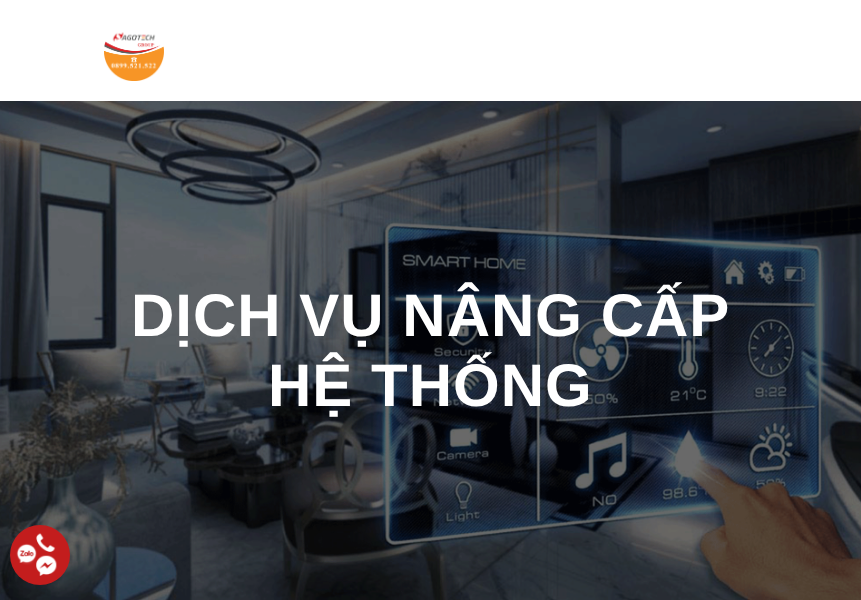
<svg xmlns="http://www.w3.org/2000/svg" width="861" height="600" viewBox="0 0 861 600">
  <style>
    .t1 { font: bold 60px Liberation Sans; letter-spacing: 1px; fill: #fff; }
  </style>
  <rect width="100%" height="100%" fill="#fff"/>
  <image x="104" y="32" width="60" height="49" href="images/1.png"/>
  <image x="0" y="101" width="861" height="499" href="images/2.png"/>
  <text x="131" y="336" class="t1">DỊCH VỤ NÂNG CẤP</text>
  <text x="268" y="406" class="t1">HỆ THỐNG</text>
  <circle cx="40" cy="555" r="30" fill="#c31d1d"/>
  <image x="16" y="533" width="41" height="43" href="images/3.png"/>
</svg>
